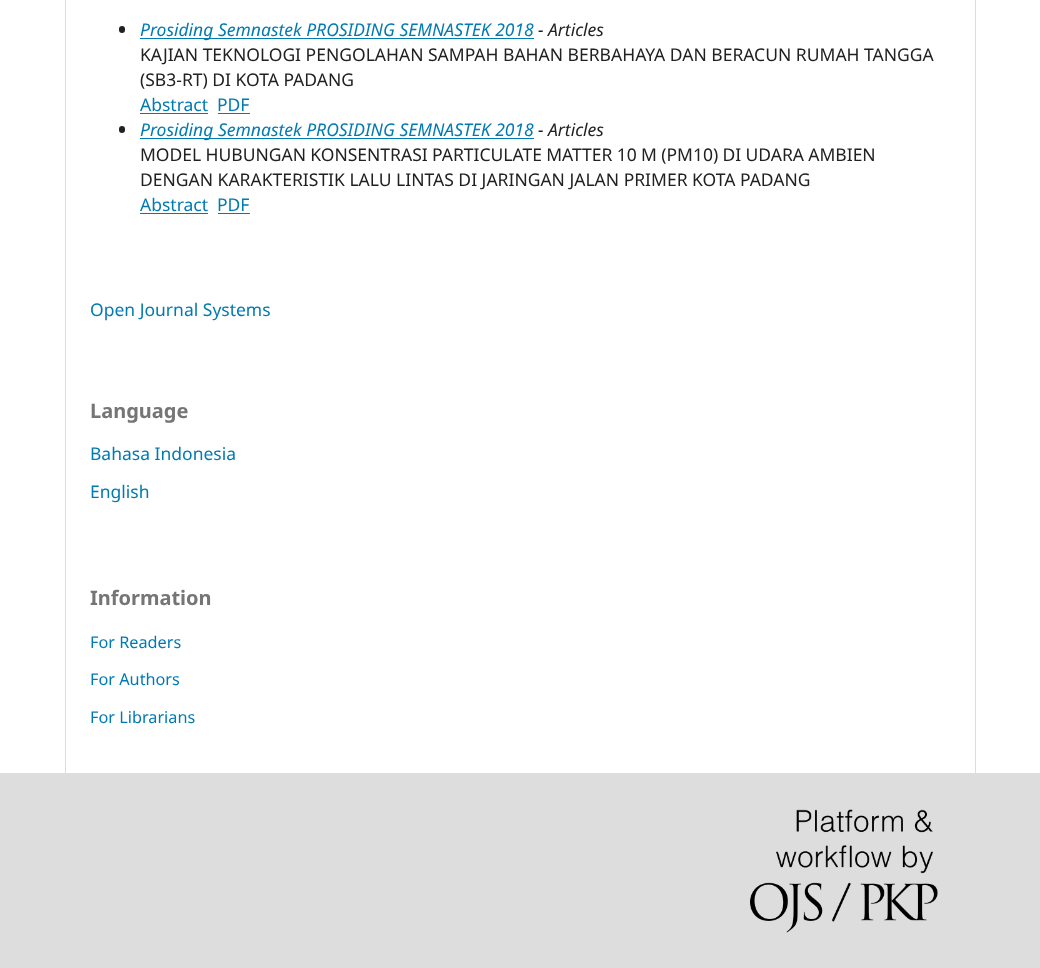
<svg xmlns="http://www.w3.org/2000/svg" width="1040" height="968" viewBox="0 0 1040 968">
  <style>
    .t1 { font: italic 17.5px Noto Sans; fill: #007ab2; }
    .t2 { font: italic 17.5px Noto Sans; fill: #212121; }
    .t3 { font: 17.5px Noto Sans; fill: #212121; }
    .t4 { font: 17.5px Noto Sans; fill: #007ab2; }
    .t5 { font: bold 20px Noto Sans; fill: #757575; }
    .t6 { font: 16.25px Noto Sans; fill: #007ab2; }
  </style>
  <rect width="100%" height="100%" fill="#fff"/>
  <rect x="65" y="0" width="1" height="773" fill="#ddd"/>
  <rect x="119" y="26" width="6" height="7" rx="3" fill="#212121"/>
  <rect x="140" y="38" width="394" height="1" fill="#007ab2"/>
  <text x="140" y="36" class="t1">Prosiding Semnastek PROSIDING SEMNASTEK 2018</text>
  <text x="538" y="36" class="t2">- Articles</text>
  <text x="140" y="61" class="t3">KAJIAN TEKNOLOGI PENGOLAHAN SAMPAH BAHAN BERBAHAYA DAN BERACUN RUMAH TANGGA</text>
  <text x="140" y="86" class="t3">(SB3-RT) DI KOTA PADANG</text>
  <text x="140" y="111" class="t4">Abstract</text>
  <rect x="140" y="113" width="68" height="1" fill="#007ab2"/>
  <text x="217" y="111" class="t4">PDF</text>
  <rect x="218" y="113" width="32" height="1" fill="#007ab2"/>
  <rect x="119" y="126" width="6" height="7" rx="3" fill="#212121"/>
  <rect x="140" y="138" width="394" height="1" fill="#007ab2"/>
  <text x="140" y="136" class="t1">Prosiding Semnastek PROSIDING SEMNASTEK 2018</text>
  <text x="538" y="136" class="t2">- Articles</text>
  <text x="140" y="161" word-spacing="-0.25" class="t3">MODEL HUBUNGAN KONSENTRASI PARTICULATE MATTER 10 M (PM10) DI UDARA AMBIEN</text>
  <text x="140" y="186" class="t3">DENGAN KARAKTERISTIK LALU LINTAS DI JARINGAN JALAN PRIMER KOTA PADANG</text>
  <text x="140" y="211" class="t4">Abstract</text>
  <rect x="140" y="213" width="68" height="1" fill="#007ab2"/>
  <text x="217" y="211" class="t4">PDF</text>
  <rect x="218" y="213" width="32" height="1" fill="#007ab2"/>
  <rect x="975" y="0" width="1" height="773" fill="#ddd"/>
  <text x="90" y="316" class="t4">Open Journal Systems</text>
  <text x="90" y="418" class="t5">Language</text>
  <text x="90" y="460" class="t4">Bahasa Indonesia</text>
  <text x="90" y="498" class="t4">English</text>
  <text x="90" y="605" class="t5">Information</text>
  <text x="90" y="648" class="t6">For Readers</text>
  <text x="90" y="685" class="t6">For Authors</text>
  <text x="90" y="723" class="t6">For Librarians</text>
  <rect x="0" y="773" width="1040" height="195" fill="#ddd"/>
  <image x="750" y="809" width="188" height="124" href="images/1.png"/>
</svg>
